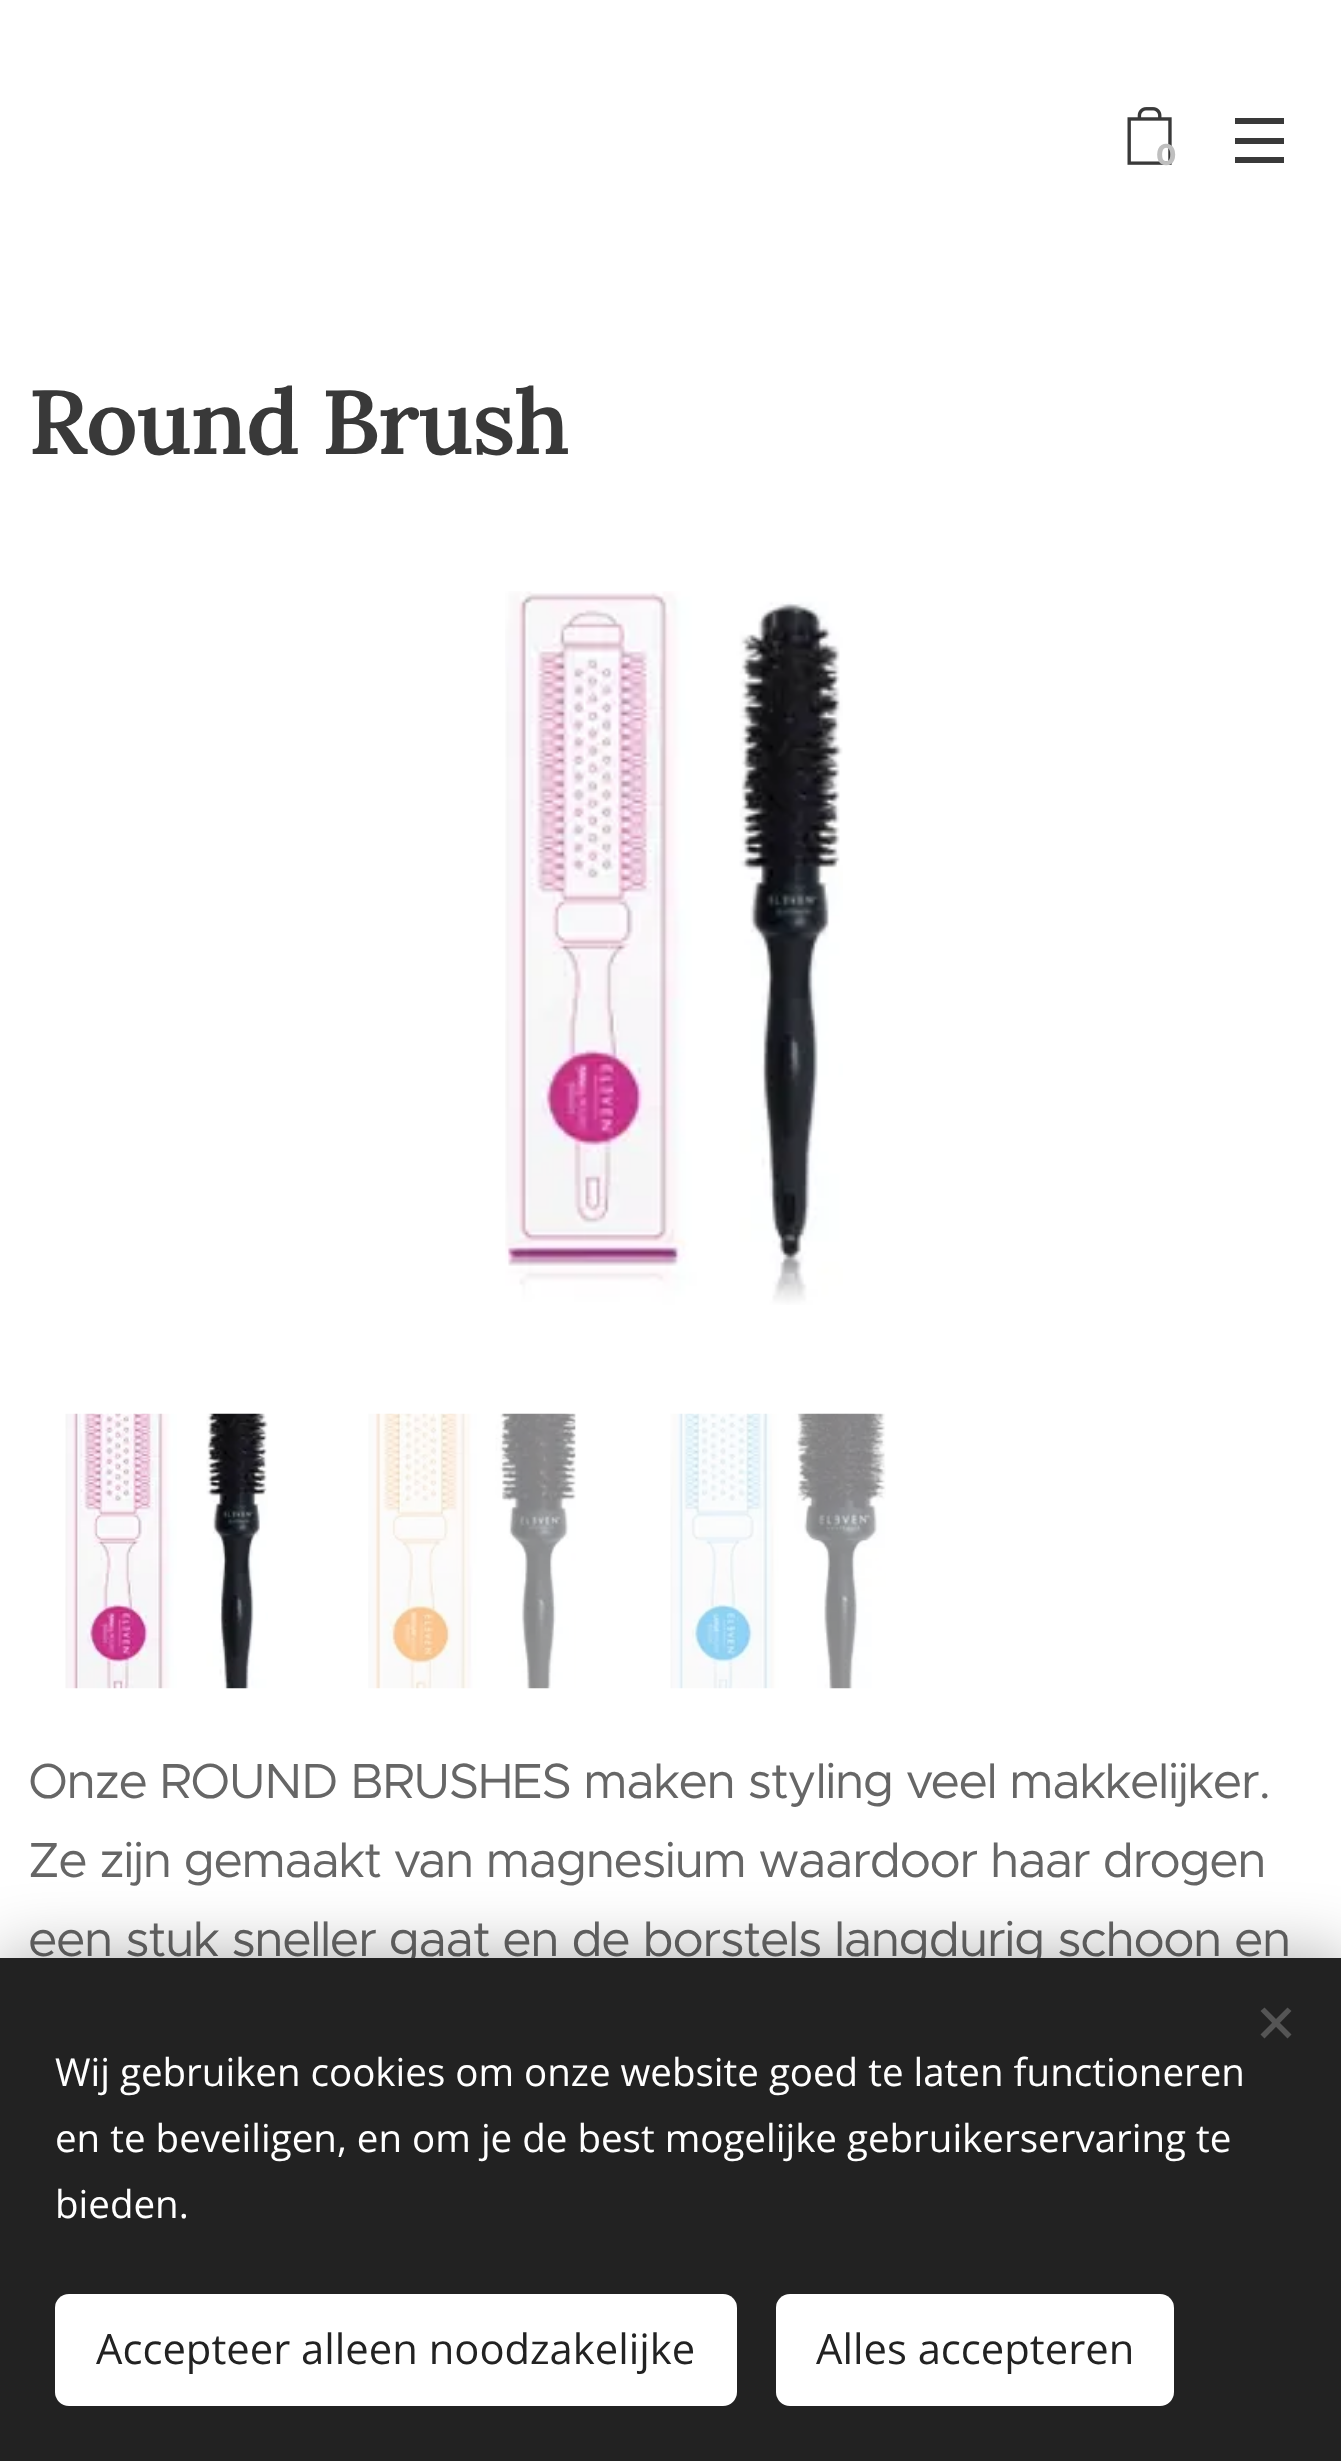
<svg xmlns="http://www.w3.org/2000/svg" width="1341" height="2461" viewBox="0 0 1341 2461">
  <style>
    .t1 { font: bold 30px Montserrat; fill: #bfbfbf; }
    .t2 { font: 600 90.75px Lora; letter-spacing: -1.42px; fill: #393939; }
    .t3 { font: 49.5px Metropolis; letter-spacing: -1.42px; fill: #666; }
    .t4 { font: 38.5px Open Sans; fill: #fff; }
    .t5 { font: 41.75px Open Sans; fill: #222; }
  </style>
  <rect width="100%" height="100%" fill="#fff"/>
  <image x="1127" y="107" width="45" height="58" href="images/1.png"/>
  <text x="1156" y="165" class="t1">0</text>
  <rect x="1235" y="138" width="49" height="6" fill="#393939"/>
  <rect x="1235" y="118" width="49" height="6" fill="#393939"/>
  <rect x="1235" y="157" width="49" height="6" fill="#393939"/>
  <text x="28" y="454" class="t2">Round Brush</text>
  <image x="505" y="591" width="338" height="714" href="images/2.png"/>
  <image x="65" y="1413" width="203" height="276" href="images/3.png"/>
  <image x="368" y="1413" width="208" height="276" href="images/4.png"/>
  <image x="670" y="1413" width="216" height="276" href="images/5.png"/>
  <text x="28" y="1798" class="t3">Onze ROUND BRUSHES maken styling veel makkelijker.</text>
  <text x="28" y="1877" class="t3">Ze zijn gemaakt van magnesium waardoor haar drogen</text>
  <text x="28" y="1956" class="t3">een stuk sneller gaat en de borstels langdurig schoon en</text>
  <rect x="0" y="1958" width="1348" height="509" fill="#00000054" filter="blur(34.5px)"/>
  <rect x="0" y="1958" width="1341" height="503" fill="#222"/>
  <path d="M1260.5 2034.5L1287.5 2007.5L1291.5 2011L1264.5 2038.5Z" fill="#555"/>
  <path d="M1264.5 2007.5L1291.5 2034.5L1287.5 2038.5L1260.5 2011Z" fill="#555"/>
  <text x="55" y="2086" class="t4">Wij gebruiken cookies om onze website goed te laten functioneren</text>
  <text x="55" y="2152" class="t4">en te beveiligen, en om je de best mogelijke gebruikerservaring te</text>
  <text x="55" y="2218" class="t4">bieden.</text>
  <rect x="55" y="2294" width="682" height="112" rx="14" fill="#fff"/>
  <text x="96" y="2364" class="t5">Accepteer alleen noodzakelijke</text>
  <rect x="776" y="2294" width="398" height="112" rx="14" fill="#fff"/>
  <text x="816" y="2364" class="t5">Alles accepteren</text>
</svg>
